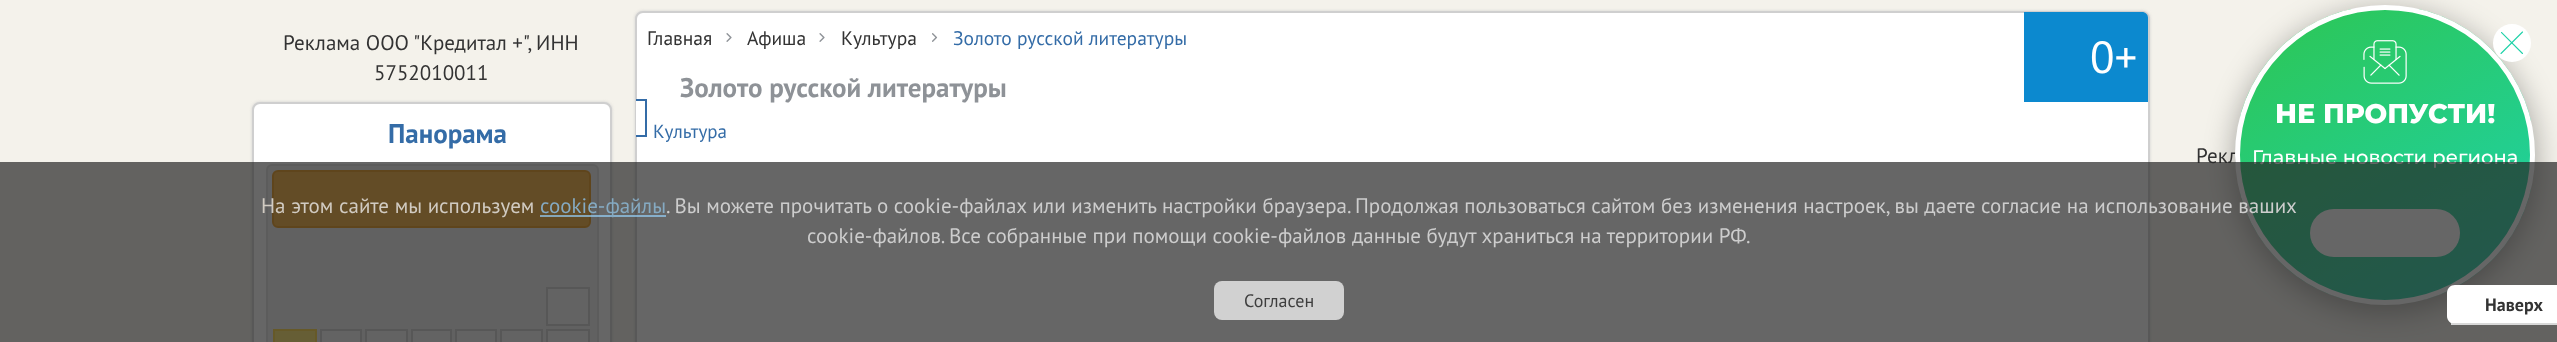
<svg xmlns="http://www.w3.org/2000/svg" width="2557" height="342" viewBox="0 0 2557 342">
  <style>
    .t1 { font: 21px PT Sans; fill: #333; }
    .t2 { font: bold 27px PT Sans; fill: #346ca7; }
    .t3 { font: 19.5px PT Sans; fill: #333; }
    .t4 { font: 19.5px PT Sans; fill: #346ca7; }
    .t5 { font: 45px PT Sans; fill: #fff; }
    .t6 { font: bold 27px PT Sans; fill: #8e9297; }
    .t7 { font: 19px PT Sans; fill: #346ca7; }
    .t8 { font: 800 27px Montserrat; fill: #fff; }
    .t9 { font: 500 19.5px Montserrat; fill: #fff; }
    .t10 { font: 21px PT Sans; fill: #d1cbc2; }
    .t11 { font: 21px PT Sans; fill: #85aac2; }
    .t12 { font: 21px PT Sans; fill: #cdcdcd; }
    .t13 { font: 18px PT Sans; fill: #3e3e3e; }
    .t14 { font: bold 18px PT Sans; fill: #333; }
  </style>
  <defs>
    <clipPath id="clip1"><rect x="2235" y="5" width="300" height="300" rx="150"/></clipPath>
    <linearGradient id="g1" gradientUnits="userSpaceOnUse" x1="2481" y1="327" x2="2289" y2="-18"><stop offset="0" stop-color="#1dd3b0"/><stop offset="0.99" stop-color="#2dc653"/></linearGradient>
    <clipPath id="clip2"><rect x="2501" y="32" width="22" height="22"/></clipPath>
  </defs>
  <rect width="100%" height="100%" fill="#f4f2eb"/>
  <text x="283" y="50" class="t1">Реклама ООО "Кредитал +", ИНН</text>
  <text x="374" y="80" class="t1">5752010011</text>
  <rect x="252" y="102" width="360" height="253" rx="8" fill="#cfcfcf" filter="blur(1.5px)"/>
  <rect x="253" y="103" width="358" height="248" rx="7" fill="#fff" stroke="#cfcfcf" stroke-width="2"/>
  <text x="388" y="143" class="t2">Панорама</text>
  <rect x="267" y="165" width="331" height="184" rx="5" fill="#eee" stroke="#ddd" stroke-width="2"/>
  <rect x="273" y="171" width="317" height="56" rx="5" fill="#f6a828" stroke="#e78f08" stroke-width="2"/>
  <rect x="547" y="288" width="42" height="37" fill="#f6f6f6" stroke="#ccc" stroke-width="2"/>
  <rect x="274" y="330" width="42" height="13" fill="#ffe45c" stroke="#fed22f" stroke-width="2"/>
  <rect x="321" y="330" width="40" height="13" fill="#f6f6f6" stroke="#ccc" stroke-width="2"/>
  <rect x="366" y="330" width="41" height="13" fill="#f6f6f6" stroke="#ccc" stroke-width="2"/>
  <rect x="412" y="330" width="39" height="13" fill="#f6f6f6" stroke="#ccc" stroke-width="2"/>
  <rect x="456" y="330" width="40" height="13" fill="#f6f6f6" stroke="#ccc" stroke-width="2"/>
  <rect x="501" y="330" width="41" height="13" fill="#f6f6f6" stroke="#ccc" stroke-width="2"/>
  <rect x="547" y="330" width="42" height="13" fill="#f6f6f6" stroke="#ccc" stroke-width="2"/>
  <rect x="635" y="11" width="1515" height="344" rx="8" fill="#cfcfcf" filter="blur(1.5px)"/>
  <rect x="636" y="12" width="1513" height="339" rx="7" fill="#fff" stroke="#cfcfcf" stroke-width="2"/>
  <text x="647" y="45" class="t3">Главная</text>
  <image x="726" y="33" width="6" height="9" href="images/1.png"/>
  <text x="747" y="45" class="t3">Афиша</text>
  <image x="819" y="33" width="6" height="9" href="images/1.png"/>
  <text x="841" y="45" class="t3">Культура</text>
  <image x="932" y="33" width="6" height="9" href="images/2.png"/>
  <text x="953" y="45" class="t4">Золото русской литературы</text>
  <path d="M2024 12H2142C2145.5 12 2148 14.5 2148 18V102H2024Z" fill="#0c89cf"/>
  <text x="2090" y="73" class="t5">0+</text>
  <text x="680" y="97" class="t6">Золото русской литературы</text>
  <rect x="636" y="101" width="1" height="34" fill="#fff"/>
  <path d="M636 137H647V99H636V101H645V135H636Z" fill="#346ca7"/>
  <text x="653" y="138" class="t7">Культура</text>
  <text x="2196" y="163" class="t1">Рекл</text>
  <rect x="2235" y="12" width="300" height="300" rx="150" fill="#00000059" filter="blur(15px)"/>
  <g clip-path="url(#clip1)">
    <rect x="2240" y="9" width="291" height="291" fill="url(#g1)"/>
  </g>
  <circle cx="2385" cy="155" r="147.5" fill="none" stroke="#fff" stroke-width="5"/>
  <circle cx="2512" cy="43" r="19" fill="#fff"/>
  <path d="M2501 53.5L2522.5 32" fill="none" stroke="#1ed2a8" stroke-width="1.1" stroke-linecap="round" stroke-linejoin="round"/>
  <g clip-path="url(#clip2)">
    <path d="M2501 32L2522.5 53.5" fill="none" stroke="#1ed2a8" stroke-width="1.1" stroke-linecap="round" stroke-linejoin="round"/>
  </g>
  <image x="2363" y="40" width="44" height="44" href="images/3.png"/>
  <text x="2275" y="123" class="t8">НЕ ПРОПУСТИ!</text>
  <text x="2252" y="164" class="t9">Главные новости региона</text>
  <rect x="2310" y="209" width="150" height="48" rx="24" fill="#fff"/>
  <rect x="0" y="162" width="2557" height="180" fill="#252525b3"/>
  <text x="261" y="213" class="t10">На этом сайте мы используем</text>
  <rect x="540" y="215" width="126" height="2" fill="#95cef6b3"/>
  <text x="540" y="213" class="t11">cookie-файлы</text>
  <text x="666" y="213" class="t12">. Вы можете прочитать о cookie-файлах или изменить настройки браузера.</text>
  <text x="1355" y="213" class="t12">Продолжая пользоваться сайтом без изменения настроек, вы даете согласие на использование ваших</text>
  <text x="807" y="243" class="t12">cookie-файлов.</text>
  <text x="949" y="243" class="t12">Все собранные при помощи cookie-файлов данные будут храниться на территории РФ.</text>
  <rect x="1214" y="281" width="130" height="39" rx="8" fill="#ffffffb3"/>
  <text x="1244" y="307" class="t13">Согласен</text>
  <path d="M2455 285H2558V324H2455C2450.5 324 2447 320.5 2447 316V293C2447 288.5 2450.5 285 2455 285Z" fill="#fff"/>
  <rect x="2451" y="323" width="106" height="2" fill="#d8d8d8"/>
  <text x="2485" y="311" class="t14">Наверх</text>
</svg>
